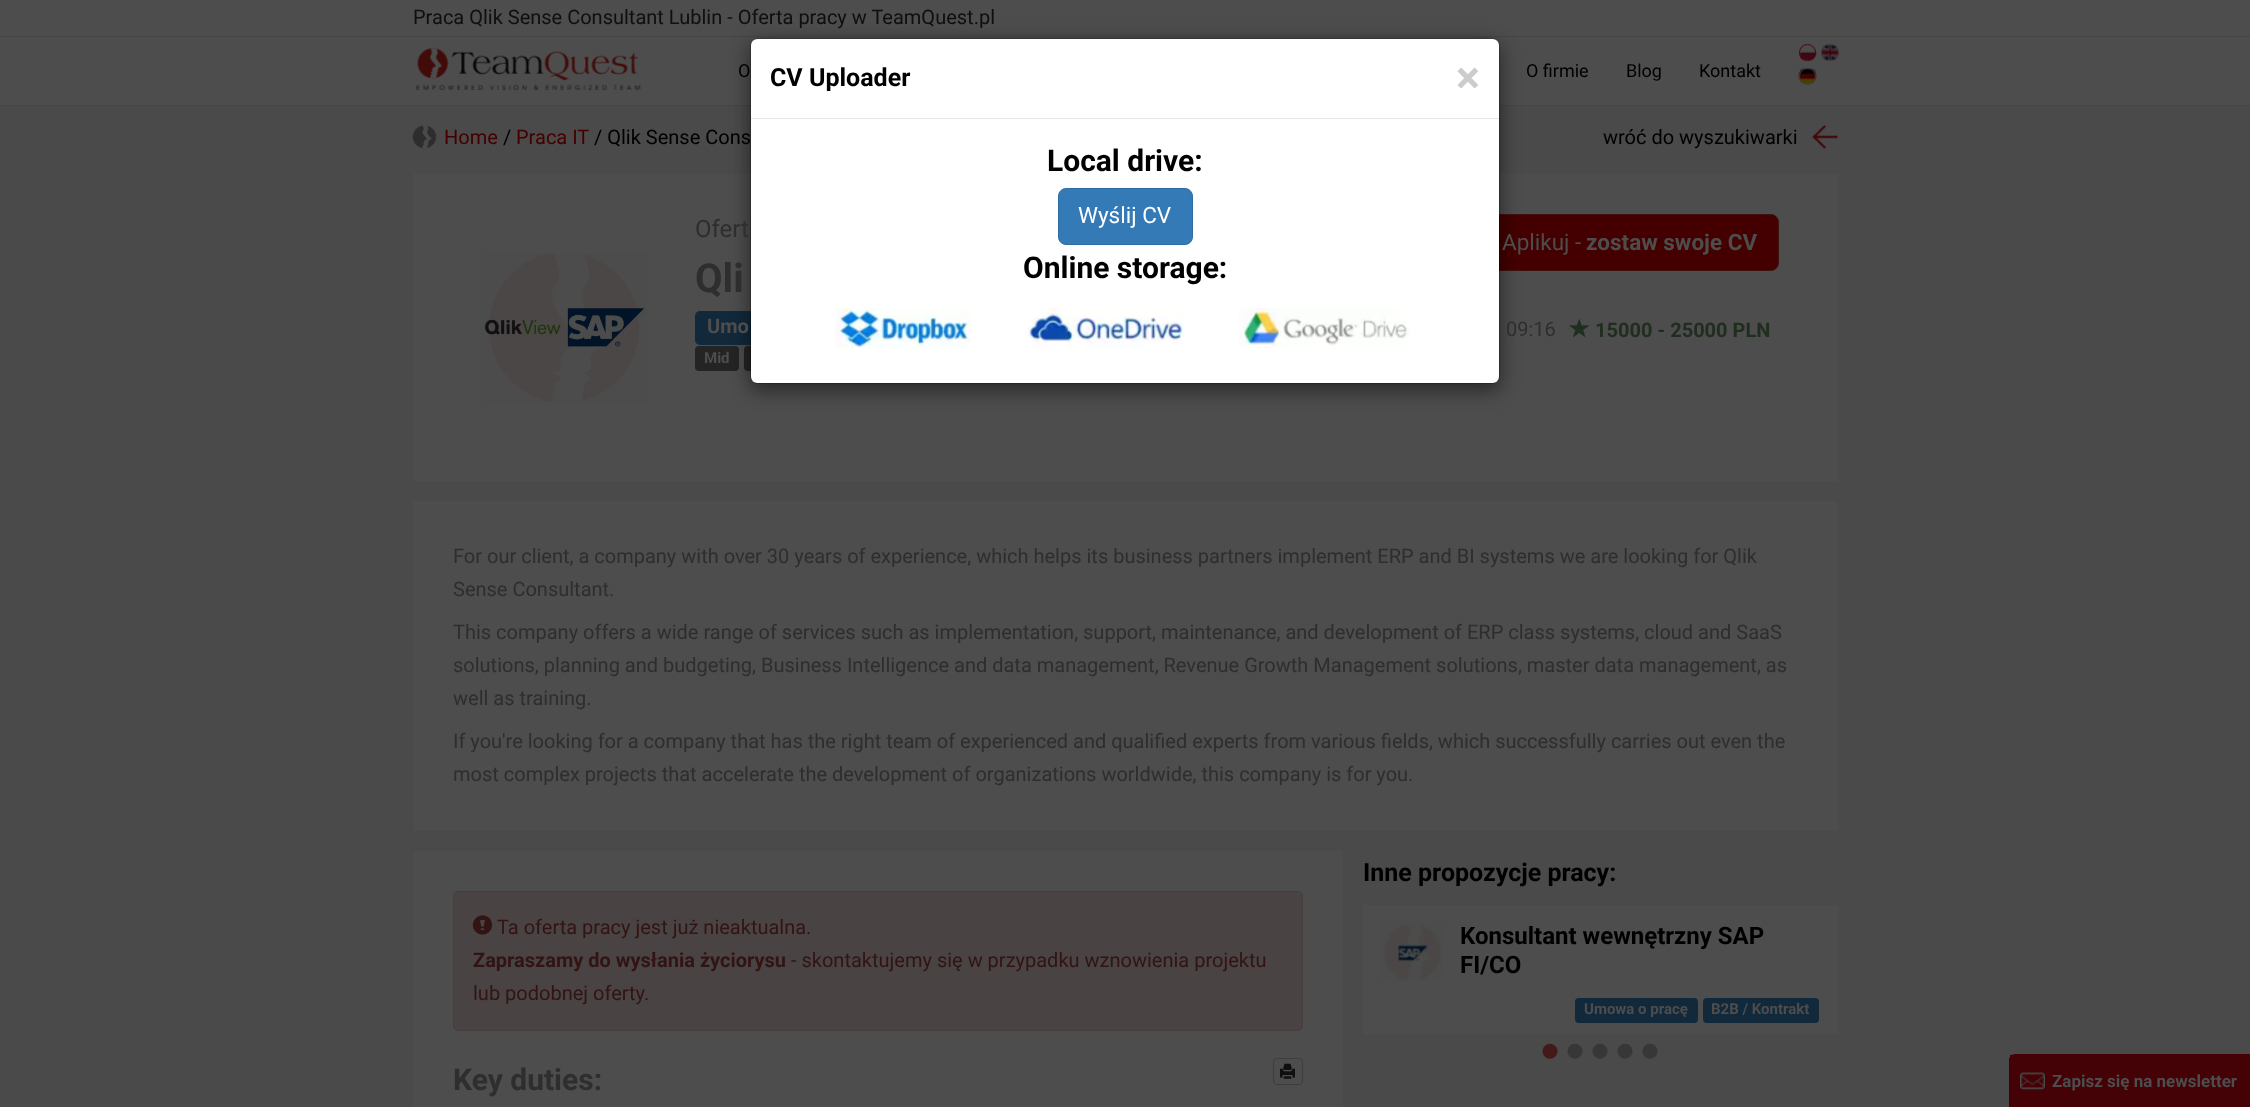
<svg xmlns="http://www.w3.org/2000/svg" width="2250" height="1107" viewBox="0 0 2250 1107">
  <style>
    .t1 { font: 20px Roboto; fill: #0f0f0f; }
    .t2 { font: 18px Roboto; fill: #000; }
    .t3 { font: bold 25px Roboto; fill: #000; }
    .t4 { font: bold 45px Roboto; fill: #ccc; }
    .t5 { font: bold 30px Roboto; fill: #000; }
    .t6 { font: 22.5px Roboto; fill: #fff; }
    .t7 { font: 20px Roboto; fill: #400; }
    .t8 { font: 20px Roboto; fill: #000; }
    .t9 { font: 24px Roboto; fill: #2e2e2e; }
    .t10 { font: 22.5px Roboto; fill: #4d4d4d; }
    .t11 { font: bold 22.5px Roboto; fill: #4d4d4d; }
    .t12 { font: bold 40px Roboto; fill: #2e2e2e; }
    .t13 { font: bold 20px Roboto; fill: #4d4d4d; }
    .t14 { font: 20px Roboto; fill: #2e2e2e; }
    .t15 { font: bold 20px Roboto; fill: #202e1f; }
    .t16 { font: bold 15px Roboto; fill: #4d4d4d; }
    .t17 { font: 20px Roboto; fill: #331414; }
    .t18 { font: bold 20px Roboto; fill: #331414; }
    .t19 { font: bold 30px Roboto; fill: #2e2e2e; }
    .t20 { font: bold 24px Roboto; fill: #000; }
    .t21 { font: bold 17px Roboto; fill: #4d4d4d; }
  </style>
  <rect width="100%" height="100%" fill="#4a4a4a"/>
  <rect x="0" y="0" width="2250" height="105" fill="#4d4d4d"/>
  <rect x="0" y="105" width="2250" height="1" fill="#454545"/>
  <rect x="0" y="36" width="2250" height="1" fill="#454545"/>
  <text x="413" y="24" class="t1">Praca Qlik Sense Consultant Lublin - Oferta pracy w TeamQuest.pl</text>
  <image x="416" y="47" width="225" height="43" href="images/1.png"/>
  <text x="738" y="77" class="t2">O</text>
  <text x="1526" y="77" class="t2">O firmie</text>
  <text x="1626" y="77" class="t2">Blog</text>
  <text x="1699" y="77" class="t2">Kontakt</text>
  <image x="1799" y="45" width="18" height="16" href="images/2.png"/>
  <circle cx="1807.5" cy="52.5" r="8" fill="none" stroke="#410b09"/>
  <image x="1821" y="44" width="19" height="17" href="images/3.png"/>
  <rect x="1821.5" y="44.5" width="17" height="16" rx="8" fill="none" stroke="#3d3d3d"/>
  <image x="1798" y="68" width="19" height="16" href="images/4.png"/>
  <circle cx="1807.5" cy="76.5" r="8" fill="none" stroke="#3d3d3d"/>
  <rect x="413" y="174" width="1425" height="307" fill="#4d4d4d"/>
  <rect x="1480.5" y="214.5" width="298" height="56" rx="7.5" fill="#400" stroke="#401311"/>
  <rect x="695" y="311" width="163" height="34" rx="5" fill="#11293b"/>
  <rect x="695" y="346" width="44" height="25" rx="4" fill="#242424"/>
  <rect x="744" y="346" width="70" height="25" rx="4" fill="#242424"/>
  <rect x="750" y="44" width="750" height="346" rx="8" fill="#00000080" filter="blur(9.5px)"/>
  <rect x="751" y="39" width="748" height="344" rx="6" fill="#fff"/>
  <rect x="750.5" y="38.5" width="749" height="345" rx="7.5" fill="none" stroke="#00000033"/>
  <rect x="751" y="118" width="748" height="1" fill="#e5e5e5"/>
  <text x="770" y="86" class="t3">CV Uploader</text>
  <text x="1456" y="93" class="t4">×</text>
  <text x="1047" y="171" class="t5">Local drive:</text>
  <rect x="1058.5" y="188.5" width="134" height="56" rx="7.5" fill="#337ab7" stroke="#2e6da4"/>
  <text x="1078" y="223" class="t6">Wyślij CV</text>
  <text x="1023" y="278" class="t5">Online storage:</text>
  <image x="835" y="308" width="137" height="41" href="images/5.png"/>
  <image x="1025" y="308" width="159" height="41" href="images/6.png"/>
  <image x="1239" y="308" width="171" height="40" href="images/7.png"/>
  <image x="412" y="125" width="25" height="23" href="images/8.png"/>
  <text x="444" y="144" class="t7">Home</text>
  <text x="503" y="144" class="t8">/</text>
  <text x="516" y="144" class="t7">Praca IT</text>
  <text x="594" y="144" class="t8">/ Qlik Sense Cons</text>
  <text x="1603" y="144" class="t8">wróć do wyszukiwarki</text>
  <image x="1812" y="125" width="26" height="24" href="images/9.png"/>
  <image x="481" y="253" width="167" height="150" href="images/10.png"/>
  <text x="695" y="237" class="t9">Ofert</text>
  <text x="1502" y="250" class="t10">Aplikuj -</text>
  <text x="1586" y="250" class="t11">zostaw swoje CV</text>
  <text x="695" y="292" class="t12">Qli</text>
  <text x="707" y="333" class="t13">Umo</text>
  <text x="1506" y="336" class="t14">09:16</text>
  <image x="1569" y="318" width="21" height="20" href="images/11.png"/>
  <text x="1595" y="337" class="t15">15000 - 25000 PLN</text>
  <text x="704" y="363" class="t16">Mid</text>
  <rect x="413" y="501" width="1425" height="330" fill="#4d4d4d"/>
  <text x="453" y="563" class="t14">For our client, a company with over 30 years of experience, which helps its business partners implement ERP and BI systems we are looking for Qlik</text>
  <text x="453" y="596" class="t14">Sense Consultant.</text>
  <text x="453" y="639" class="t14">This company offers a wide range of services such as implementation, support, maintenance, and development of ERP class systems, cloud and SaaS</text>
  <text x="453" y="672" class="t14">solutions, planning and budgeting, Business Intelligence and data management, Revenue Growth Management solutions, master data management, as</text>
  <text x="453" y="705" class="t14">well as training.</text>
  <text x="453" y="748" class="t14">If you're looking for a company that has the right team of experienced and qualified experts from various fields, which successfully carries out even the</text>
  <text x="453" y="781" class="t14">most complex projects that accelerate the development of organizations worldwide, this company is for you.</text>
  <rect x="413" y="851" width="930" height="256" fill="#4d4d4d"/>
  <rect x="453.5" y="891.5" width="849" height="139" rx="4.5" fill="#494343" stroke="#473d3f"/>
  <image x="472" y="915" width="21" height="20" href="images/12.png"/>
  <text x="497" y="934" class="t17">Ta oferta pracy jest już nieaktualna.</text>
  <text x="473" y="967" class="t18">Zapraszamy do wysłania życiorysu</text>
  <text x="791" y="967" class="t17">- skontaktujemy się w przypadku wznowienia projektu</text>
  <text x="473" y="1000" class="t17">lub podobnej oferty.</text>
  <text x="453" y="1090" class="t19">Key duties:</text>
  <rect x="1273.5" y="1058.5" width="29" height="26" rx="3.5" fill="none" stroke="#3d3d3d"/>
  <image x="1280" y="1063" width="15" height="16" href="images/13.png"/>
  <text x="1363" y="881" class="t3">Inne propozycje pracy:</text>
  <rect x="1363" y="905" width="475" height="129" fill="#4d4d4d"/>
  <image x="1381" y="921" width="61" height="60" href="images/14.png"/>
  <text x="1460" y="944" class="t20">Konsultant wewnętrzny SAP</text>
  <text x="1460" y="973" class="t20">FI/CO</text>
  <rect x="1575" y="998" width="123" height="25" rx="4" fill="#11293b"/>
  <text x="1584" y="1014" class="t16">Umowa o pracę</text>
  <rect x="1703" y="998" width="116" height="25" rx="4" fill="#11293b"/>
  <text x="1711" y="1014" class="t16">B2B / Kontrakt</text>
  <image x="1542" y="1043" width="16" height="16" href="images/15.png"/>
  <image x="1567" y="1043" width="16" height="16" href="images/16.png"/>
  <image x="1592" y="1043" width="16" height="16" href="images/16.png"/>
  <image x="1617" y="1043" width="16" height="16" href="images/16.png"/>
  <image x="1642" y="1043" width="16" height="16" href="images/16.png"/>
  <path d="M2015 1054H2250V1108H2009V1060C2009 1057 2012 1054 2015 1054ZM2015 1055H2250V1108H2010V1060C2010 1057 2012 1055 2015 1055Z" fill="#440206" fill-rule="evenodd"/>
  <rect x="2010" y="1055" width="240" height="52" fill="#440206"/>
  <image x="2020" y="1072" width="25" height="19" href="images/17.png"/>
  <text x="2052" y="1087" class="t21">Zapisz się na newsletter</text>
</svg>
